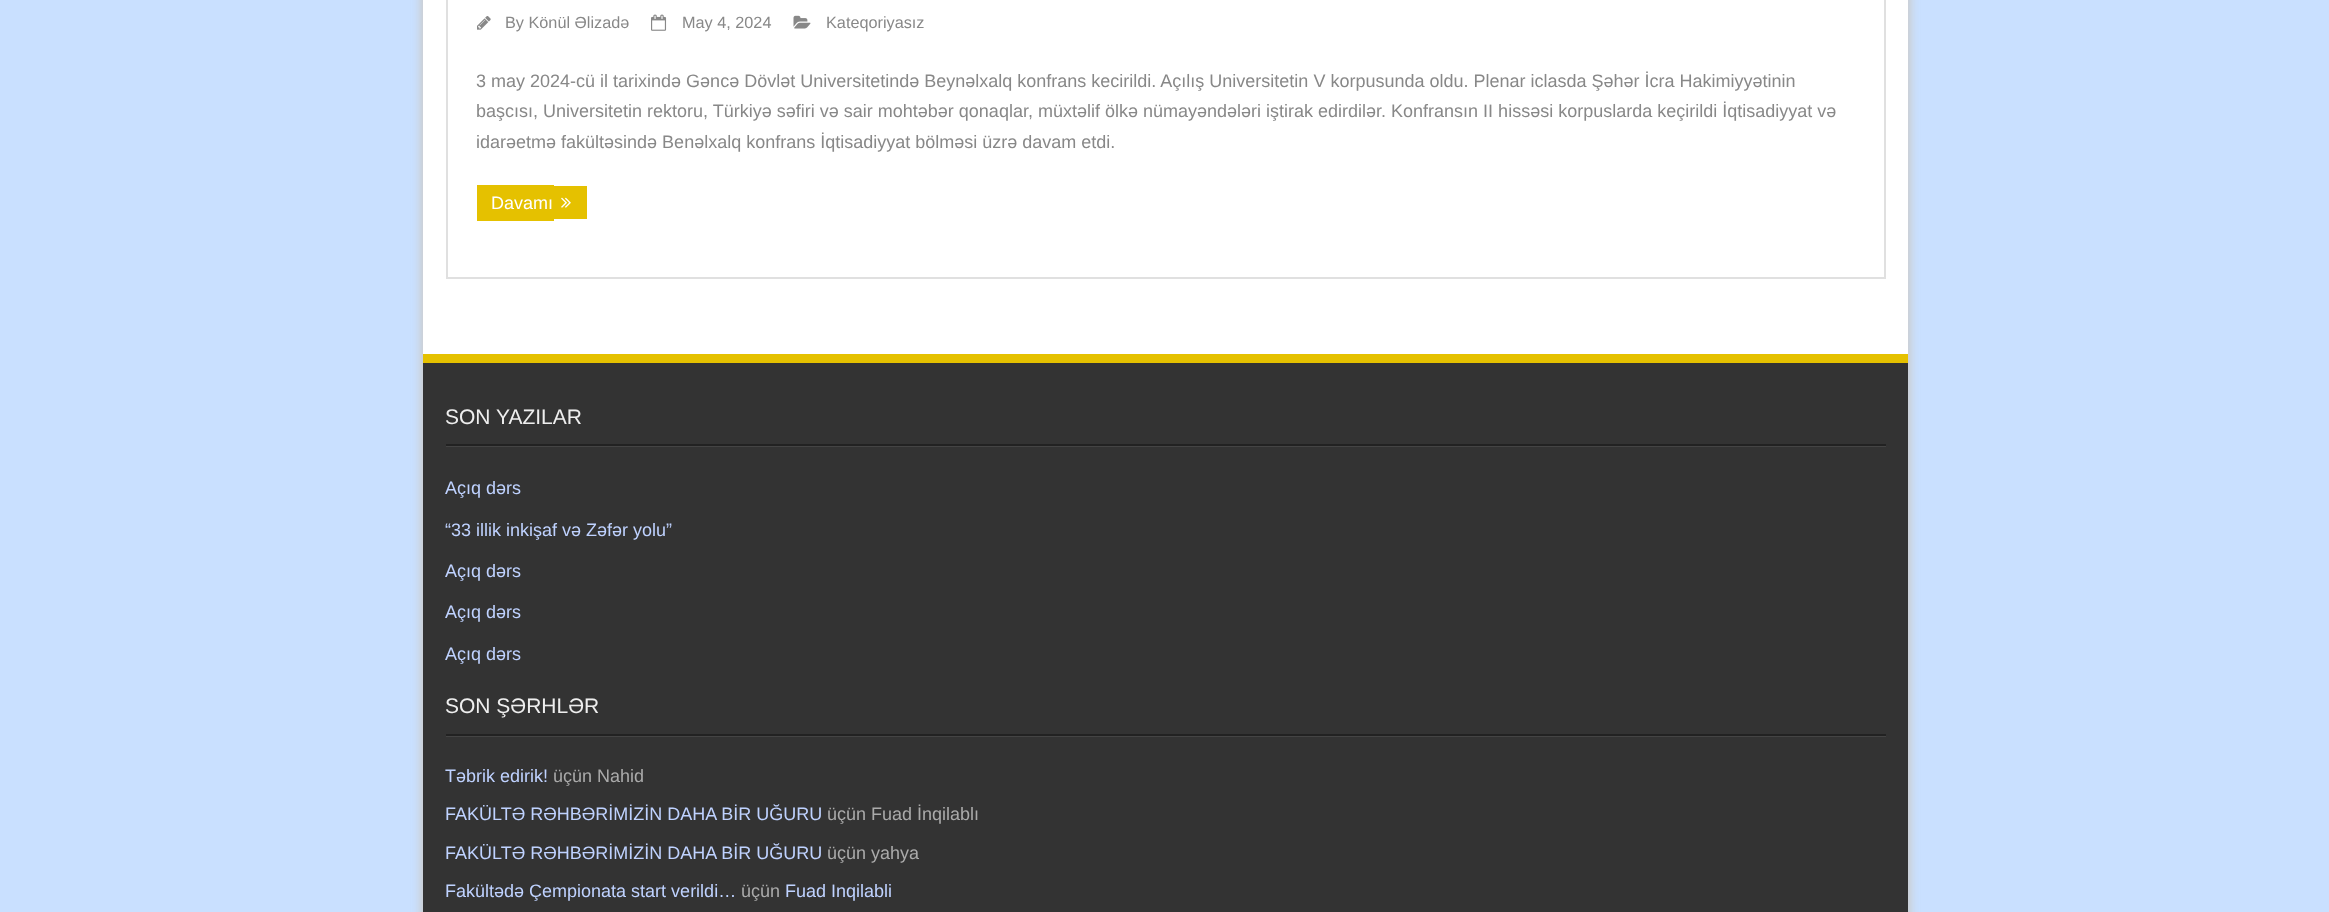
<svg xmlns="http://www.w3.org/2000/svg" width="2329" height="912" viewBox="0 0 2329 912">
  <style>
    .t1 { font: 16.25px Liberation Sans; fill: #888; }
    .t2 { font: 18px Liberation Sans; fill: #888; }
    .t3 { font: 18px Liberation Sans; fill: #fff; }
    .t4 { font: 21px Liberation Sans; fill: #eee; }
    .t5 { font: 18px Liberation Sans; fill: #bfd2ff; }
    .t6 { font: 18px Liberation Sans; fill: #aaa; }
  </style>
  <rect width="100%" height="100%" fill="#c9e0ff"/>
  <rect x="420" y="-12" width="1491" height="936" fill="#ccc" filter="blur(4px)"/>
  <rect x="423" y="0" width="1485" height="354" fill="#fff"/>
  <rect x="447" y="-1" width="1438" height="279" fill="none" stroke="#e0e0e0" stroke-width="2"/>
  <image x="477" y="16" width="14" height="14" href="images/1.png"/>
  <text x="505" y="28" class="t1">By Könül Əlizadə</text>
  <image x="651" y="14" width="16" height="17" href="images/2.png"/>
  <text x="682" y="28" class="t1">May 4, 2024</text>
  <image x="793" y="15" width="18" height="14" href="images/3.png"/>
  <text x="826" y="28" class="t1">Kateqoriyasız</text>
  <text x="476" y="87" class="t2">3 may 2024-cü il tarixində Gəncə Dövlət Universitetində Beynəlxalq konfrans kecirildi. Açılış Universitetin V korpusunda oldu. Plenar iclasda Şəhər İcra Hakimiyyətinin</text>
  <text x="476" y="117" class="t2">başcısı, Universitetin rektoru, Türkiyə səfiri və sair mohtəbər qonaqlar, müxtəlif ölkə nümayəndələri iştirak edirdilər. Konfransın II hissəsi korpuslarda keçirildi İqtisadiyyat və</text>
  <text x="476" y="148" class="t2">idarəetmə fakültəsində Benəlxalq konfrans İqtisadiyyat bölməsi üzrə davam etdi.</text>
  <rect x="477" y="185" width="77" height="36" fill="#e5c100"/>
  <text x="491" y="209" class="t3">Davamı</text>
  <rect x="554" y="186" width="33" height="33" fill="#e5c100"/>
  <image x="561" y="197" width="10" height="11" href="images/4.png"/>
  <rect x="423" y="363" width="1485" height="549" fill="#333"/>
  <rect x="423" y="354" width="1485" height="9" fill="#e5c100"/>
  <path d="M446 446V447H1886V402V446Z" fill="#444"/>
  <rect x="446" y="444" width="1440" height="2" fill="#222"/>
  <text x="445" y="424" class="t4">SON YAZILAR</text>
  <text x="445" y="494" class="t5">Açıq dərs</text>
  <text x="445" y="536" class="t5">“33 illik inkişaf və Zəfər yolu”</text>
  <text x="445" y="577" class="t5">Açıq dərs</text>
  <text x="445" y="618" class="t5">Açıq dərs</text>
  <text x="445" y="660" class="t5">Açıq dərs</text>
  <path d="M446 735V737H1886V692V735Z" fill="#444"/>
  <rect x="446" y="734" width="1440" height="2" fill="#222"/>
  <text x="445" y="713" class="t4">SON ŞƏRHLƏR</text>
  <text x="445" y="782" class="t5">Təbrik edirik!</text>
  <text x="553" y="782" class="t6">üçün Nahid</text>
  <text x="445" y="820" class="t5">FAKÜLTƏ RƏHBƏRİMİZİN DAHA BİR UĞURU</text>
  <text x="827" y="820" class="t6">üçün Fuad İnqilablı</text>
  <text x="445" y="859" class="t5">FAKÜLTƏ RƏHBƏRİMİZİN DAHA BİR UĞURU</text>
  <text x="827" y="859" class="t6">üçün yahya</text>
  <text x="445" y="897" class="t5">Fakültədə Çempionata start verildi…</text>
  <text x="741" y="897" class="t6">üçün</text>
  <text x="785" y="897" class="t5">Fuad Inqilabli</text>
</svg>
